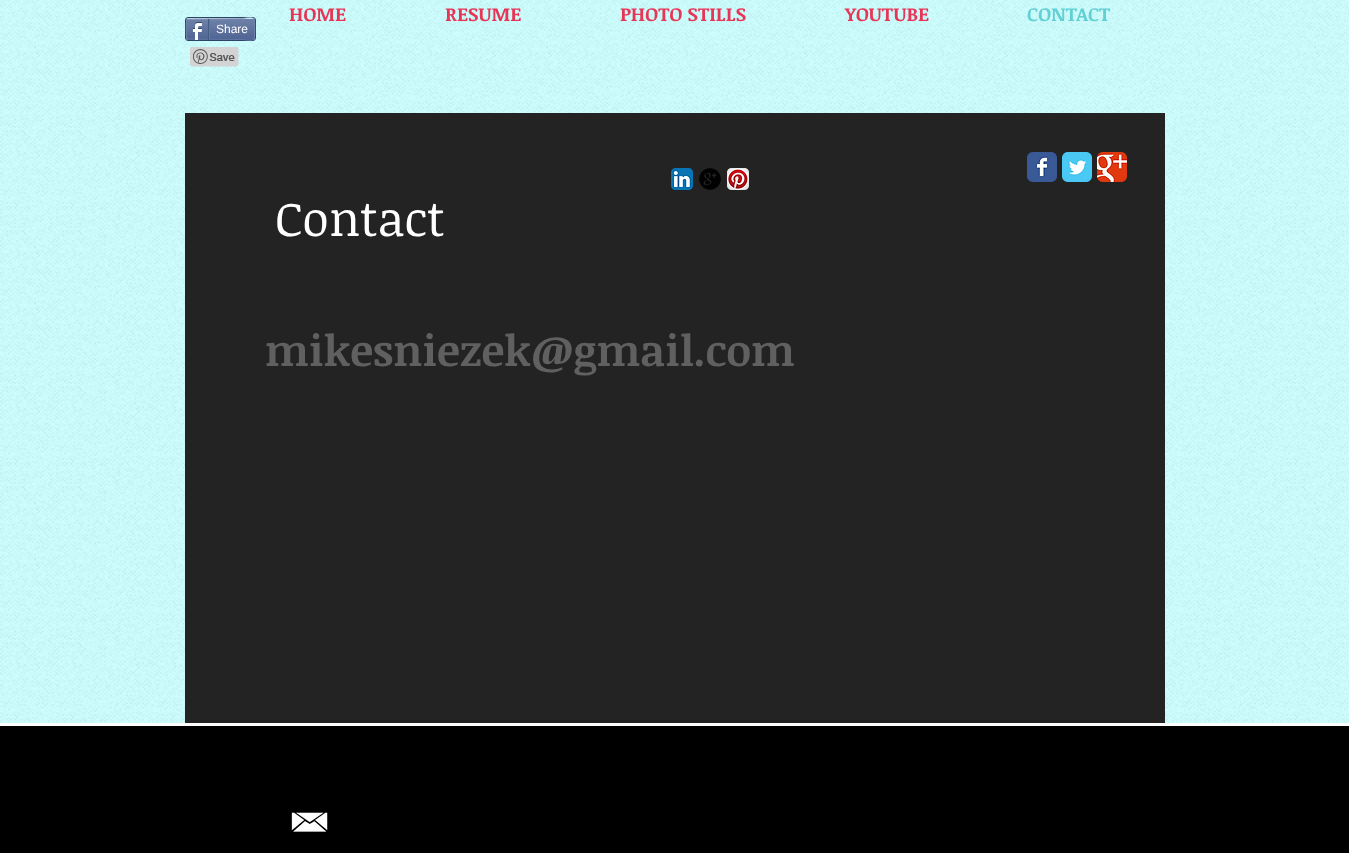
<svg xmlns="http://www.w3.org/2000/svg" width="1349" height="853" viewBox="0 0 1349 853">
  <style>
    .t1 { font: bold 19px Noticia Text; fill: #e83556; }
    .t2 { font: bold 19px Noticia Text; fill: #61cfd3; }
    .t3 { font: 12px Liberation Sans; fill: #fff; }
    .t4 { font: 48px Noticia Text; fill: #fff; }
    .t5 { font: bold 43px Noticia Text; fill: #606060; }
  </style>
  <rect width="100%" height="100%" fill="#cfffff"/>
  <image x="0" y="0" width="1349" height="723" href="images/1.png"/>
  <text x="289" y="21" class="t1">HOME</text>
  <text x="445" y="21" class="t1">RESUME</text>
  <text x="620" y="21" class="t1">PHOTO STILLS</text>
  <text x="845" y="21" class="t1">YOUTUBE</text>
  <text x="1027" y="21" class="t2">CONTACT</text>
  <rect x="185.5" y="17.5" width="70" height="23" rx="2.5" fill="none" stroke="#2d4565"/>
  <image x="186" y="19" width="69" height="21" href="images/2.png"/>
  <path d="M187 19L242 18.5C246 18.5 251 16 254 19" fill="none" stroke="#9aabc6"/>
  <path d="M254 19C255 19.5 255 38.5 254 39" fill="none" stroke="#6f83ad"/>
  <path d="M254 39C251 42 246 39.5 242 39.5L187 39" fill="none" stroke="#6176a3"/>
  <path d="M187 39C186 38.5 186 19.5 187 19" fill="none" stroke="#6f83ad"/>
  <image x="192" y="22" width="10" height="18" href="images/3.png"/>
  <rect x="208" y="19" width="1" height="21" fill="#425e85"/>
  <text x="216" y="33" class="t3">Share</text>
  <rect x="209" y="19" width="1" height="20" fill="#6176a3"/>
  <image x="190" y="47" width="49" height="20" href="images/4.png"/>
  <rect x="185" y="113" width="980" height="610" fill="#232323"/>
  <image x="671" y="168" width="22" height="22" href="images/5.png"/>
  <image x="699" y="168" width="22" height="22" href="images/6.png"/>
  <image x="727" y="168" width="22" height="22" href="images/7.png"/>
  <image x="1027" y="152" width="30" height="30" href="images/8.png"/>
  <image x="1062" y="152" width="30" height="30" href="images/9.png"/>
  <image x="1097" y="152" width="30" height="30" href="images/10.png"/>
  <text x="275" y="236" class="t4">Contact</text>
  <text x="265" y="366" class="t5">mikesniezek@gmail.com</text>
  <rect x="0" y="726" width="1349" height="127" fill="#000"/>
  <rect x="0" y="723" width="1349" height="3" fill="#fff"/>
  <image x="291" y="812" width="37" height="20" href="images/11.png"/>
</svg>
